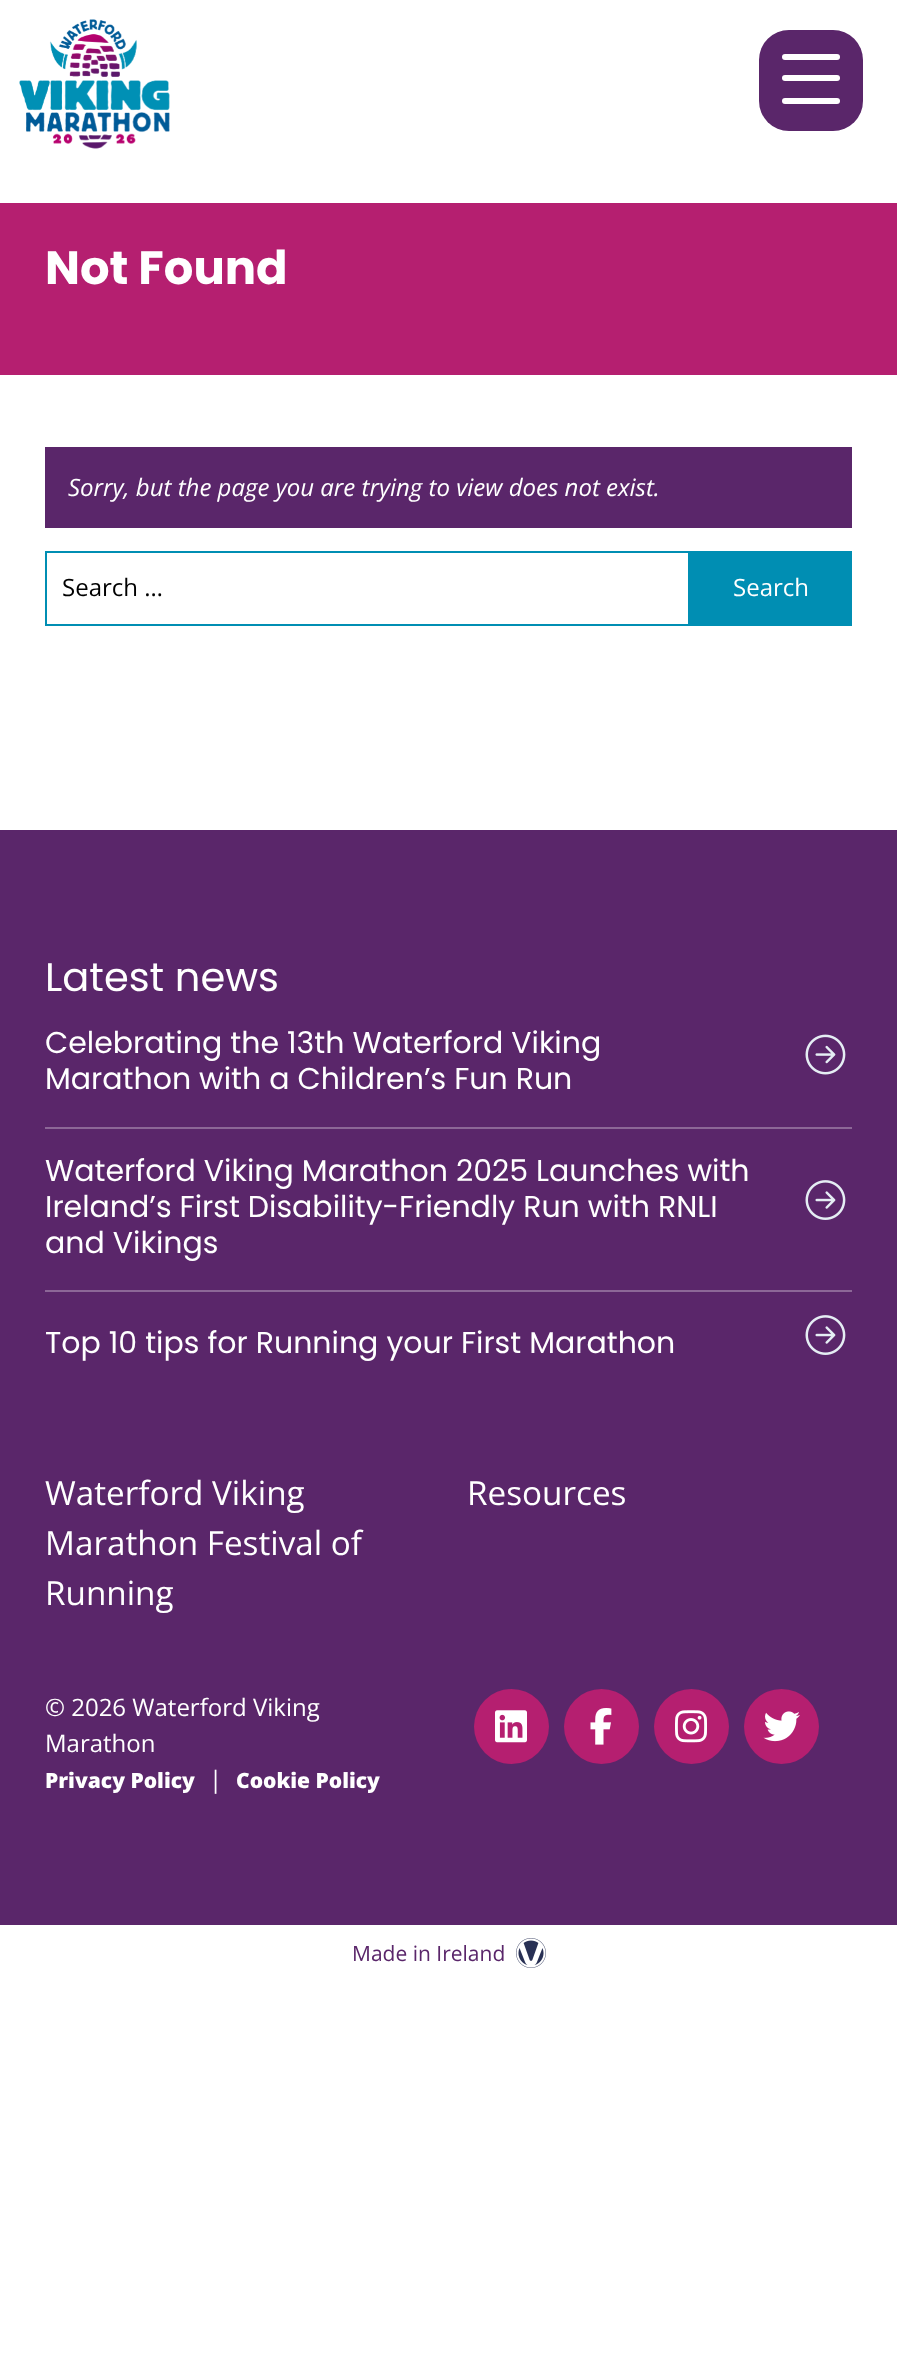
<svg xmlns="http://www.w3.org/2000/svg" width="897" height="2367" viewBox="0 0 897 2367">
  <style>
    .t1 { font: bold 46.5px Poppins; fill: #fff; }
    .t2 { font: italic 24px Open Sans; fill: #fff; }
    .t3 { font: 24px Open Sans; fill: #000; }
    .t4 { font: 24px Open Sans; fill: #fff; }
    .t5 { font: 40px Poppins; fill: #fff; }
    .t6 { font: 30px Poppins; fill: #fff; }
    .t7 { font: 33.25px Open Sans; fill: #fff; }
    .t8 { font: 800 21px Open Sans; fill: #fff; }
    .t9 { font: 21px Open Sans; fill: #5a266a; }
  </style>
  <rect width="100%" height="100%" fill="#fff"/>
  <image x="19" y="19" width="151" height="130" href="images/1.png"/>
  <rect x="759" y="30" width="104" height="101" rx="30" fill="#5a266a"/>
  <rect x="782" y="54" width="58" height="6" rx="3" fill="#fff"/>
  <rect x="782" y="75" width="58" height="6" rx="3" fill="#fff"/>
  <rect x="782" y="98" width="58" height="6" rx="3" fill="#fff"/>
  <rect x="0" y="203" width="897" height="172" fill="#b51f70"/>
  <text x="45" y="284" class="t1">Not Found</text>
  <rect x="45" y="447" width="807" height="81" fill="#5a266a"/>
  <text x="68" y="496" class="t2">Sorry, but the page you are trying to view does not exist.</text>
  <rect x="46" y="552" width="643" height="73" fill="none" stroke="#008eb3" stroke-width="2"/>
  <text x="62" y="596" class="t3">Search …</text>
  <rect x="690" y="551" width="162" height="75" fill="#008eb3"/>
  <text x="733" y="596" class="t4">Search</text>
  <rect x="0" y="830" width="897" height="1095" fill="#5a266a"/>
  <text x="45" y="991" class="t5">Latest news</text>
  <rect x="45" y="1127" width="807" height="2" fill="#8c6797"/>
  <text x="45" y="1053" class="t6">Celebrating the 13th Waterford Viking</text>
  <text x="45" y="1089" class="t6">Marathon with a Children’s Fun Run</text>
  <image x="805" y="1034" width="41" height="41" href="images/2.png"/>
  <rect x="45" y="1290" width="807" height="2" fill="#8c6797"/>
  <text x="45" y="1181" class="t6">Waterford Viking Marathon 2025 Launches with</text>
  <text x="45" y="1217" class="t6">Ireland’s First Disability-Friendly Run with RNLI</text>
  <text x="45" y="1253" class="t6">and Vikings</text>
  <image x="805" y="1180" width="41" height="40" href="images/3.png"/>
  <text x="45" y="1353" class="t6">Top 10 tips for Running your First Marathon</text>
  <image x="805" y="1315" width="41" height="40" href="images/3.png"/>
  <text x="45" y="1505" class="t7">Waterford Viking</text>
  <text x="45" y="1555" class="t7">Marathon Festival of</text>
  <text x="45" y="1605" class="t7">Running</text>
  <text x="467" y="1505" class="t7">Resources</text>
  <text x="45" y="1716" class="t4">© 2026 Waterford Viking</text>
  <text x="45" y="1752" class="t4">Marathon</text>
  <text x="45" y="1788" class="t8">Privacy Policy</text>
  <text x="209" y="1788" class="t4">|</text>
  <text x="236" y="1788" class="t8">Cookie Policy</text>
  <circle cx="511.5" cy="1726.5" r="37.5" fill="#b51f70"/>
  <image x="495" y="1710" width="32" height="33" href="images/4.png"/>
  <circle cx="601.5" cy="1726.5" r="37.5" fill="#b51f70"/>
  <image x="590" y="1708" width="22" height="37" href="images/5.png"/>
  <circle cx="691.5" cy="1726.5" r="37.5" fill="#b51f70"/>
  <image x="675" y="1710" width="32" height="33" href="images/6.png"/>
  <circle cx="781.5" cy="1726.5" r="37.5" fill="#b51f70"/>
  <image x="763" y="1711" width="37" height="31" href="images/7.png"/>
  <text x="352" y="1961" class="t9">Made in Ireland</text>
  <image x="516" y="1938" width="30" height="30" href="images/8.png"/>
</svg>
